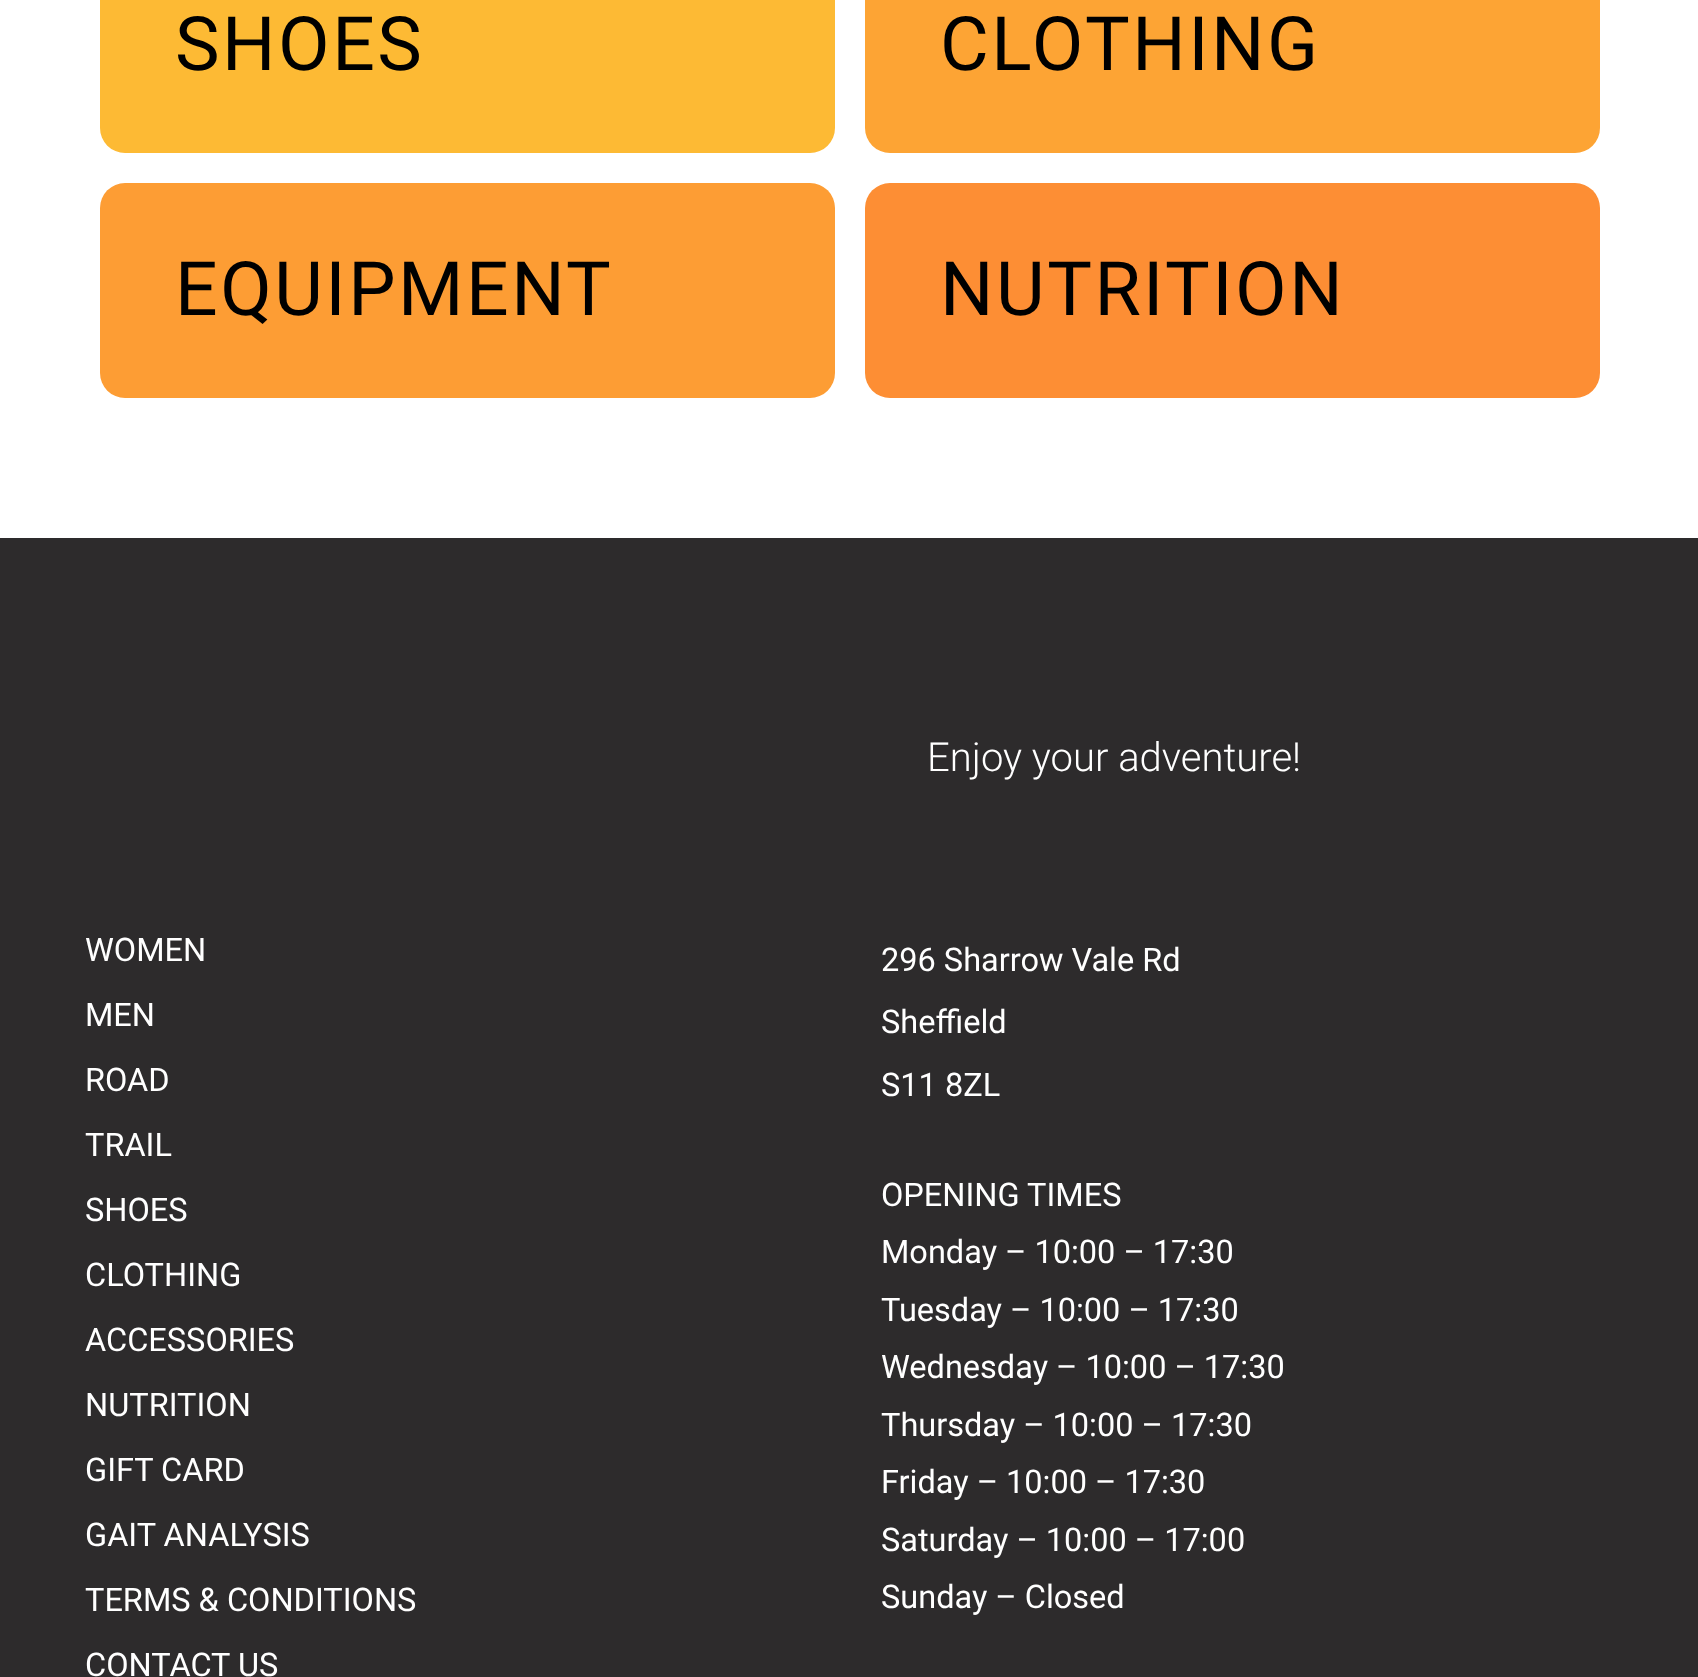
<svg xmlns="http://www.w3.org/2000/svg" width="1698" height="1677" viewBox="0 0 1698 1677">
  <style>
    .t1 { font: 75px Roboto; letter-spacing: 2.5px; fill: #000; }
    .t2 { font: 300 40px Roboto; fill: #fff; }
    .t3 { font: 32.5px Roboto; fill: #fff; }
  </style>
  <rect width="100%" height="100%" fill="#fff"/>
  <rect x="100" y="-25" width="735" height="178" rx="25" fill="#fdba34"/>
  <text x="175" y="70" class="t1">SHOES</text>
  <rect x="865" y="-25" width="735" height="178" rx="25" fill="#fda434"/>
  <text x="940" y="70" class="t1">CLOTHING</text>
  <rect x="100" y="183" width="735" height="215" rx="25" fill="#fd9d34"/>
  <text x="175" y="315" class="t1">EQUIPMENT</text>
  <rect x="865" y="183" width="735" height="215" rx="25" fill="#fd8e34"/>
  <text x="940" y="315" class="t1">NUTRITION</text>
  <rect x="0" y="538" width="1698" height="1139" fill="#2d2b2c"/>
  <text x="927" y="771" class="t2">Enjoy your adventure!</text>
  <text x="85" y="961" class="t3">WOMEN</text>
  <text x="85" y="1026" class="t3">MEN</text>
  <text x="85" y="1091" class="t3">ROAD</text>
  <text x="85" y="1156" class="t3">TRAIL</text>
  <text x="85" y="1221" class="t3">SHOES</text>
  <text x="85" y="1286" class="t3">CLOTHING</text>
  <text x="85" y="1351" class="t3">ACCESSORIES</text>
  <text x="85" y="1416" class="t3">NUTRITION</text>
  <text x="85" y="1481" class="t3">GIFT CARD</text>
  <text x="85" y="1546" class="t3">GAIT ANALYSIS</text>
  <text x="85" y="1611" class="t3">TERMS &amp; CONDITIONS</text>
  <text x="85" y="1676" class="t3">CONTACT US</text>
  <text x="881" y="971" class="t3">296 Sharrow Vale Rd</text>
  <text x="881" y="1033" class="t3">Sheffield</text>
  <text x="881" y="1096" class="t3">S11 8ZL</text>
  <text x="881" y="1206" class="t3">OPENING TIMES</text>
  <text x="881" y="1263" class="t3">Monday – 10:00 – 17:30</text>
  <text x="881" y="1321" class="t3">Tuesday – 10:00 – 17:30</text>
  <text x="881" y="1378" class="t3">Wednesday – 10:00 – 17:30</text>
  <text x="881" y="1436" class="t3">Thursday – 10:00 – 17:30</text>
  <text x="881" y="1493" class="t3">Friday – 10:00 – 17:30</text>
  <text x="881" y="1551" class="t3">Saturday – 10:00 – 17:00</text>
  <text x="881" y="1608" class="t3">Sunday – Closed</text>
</svg>
